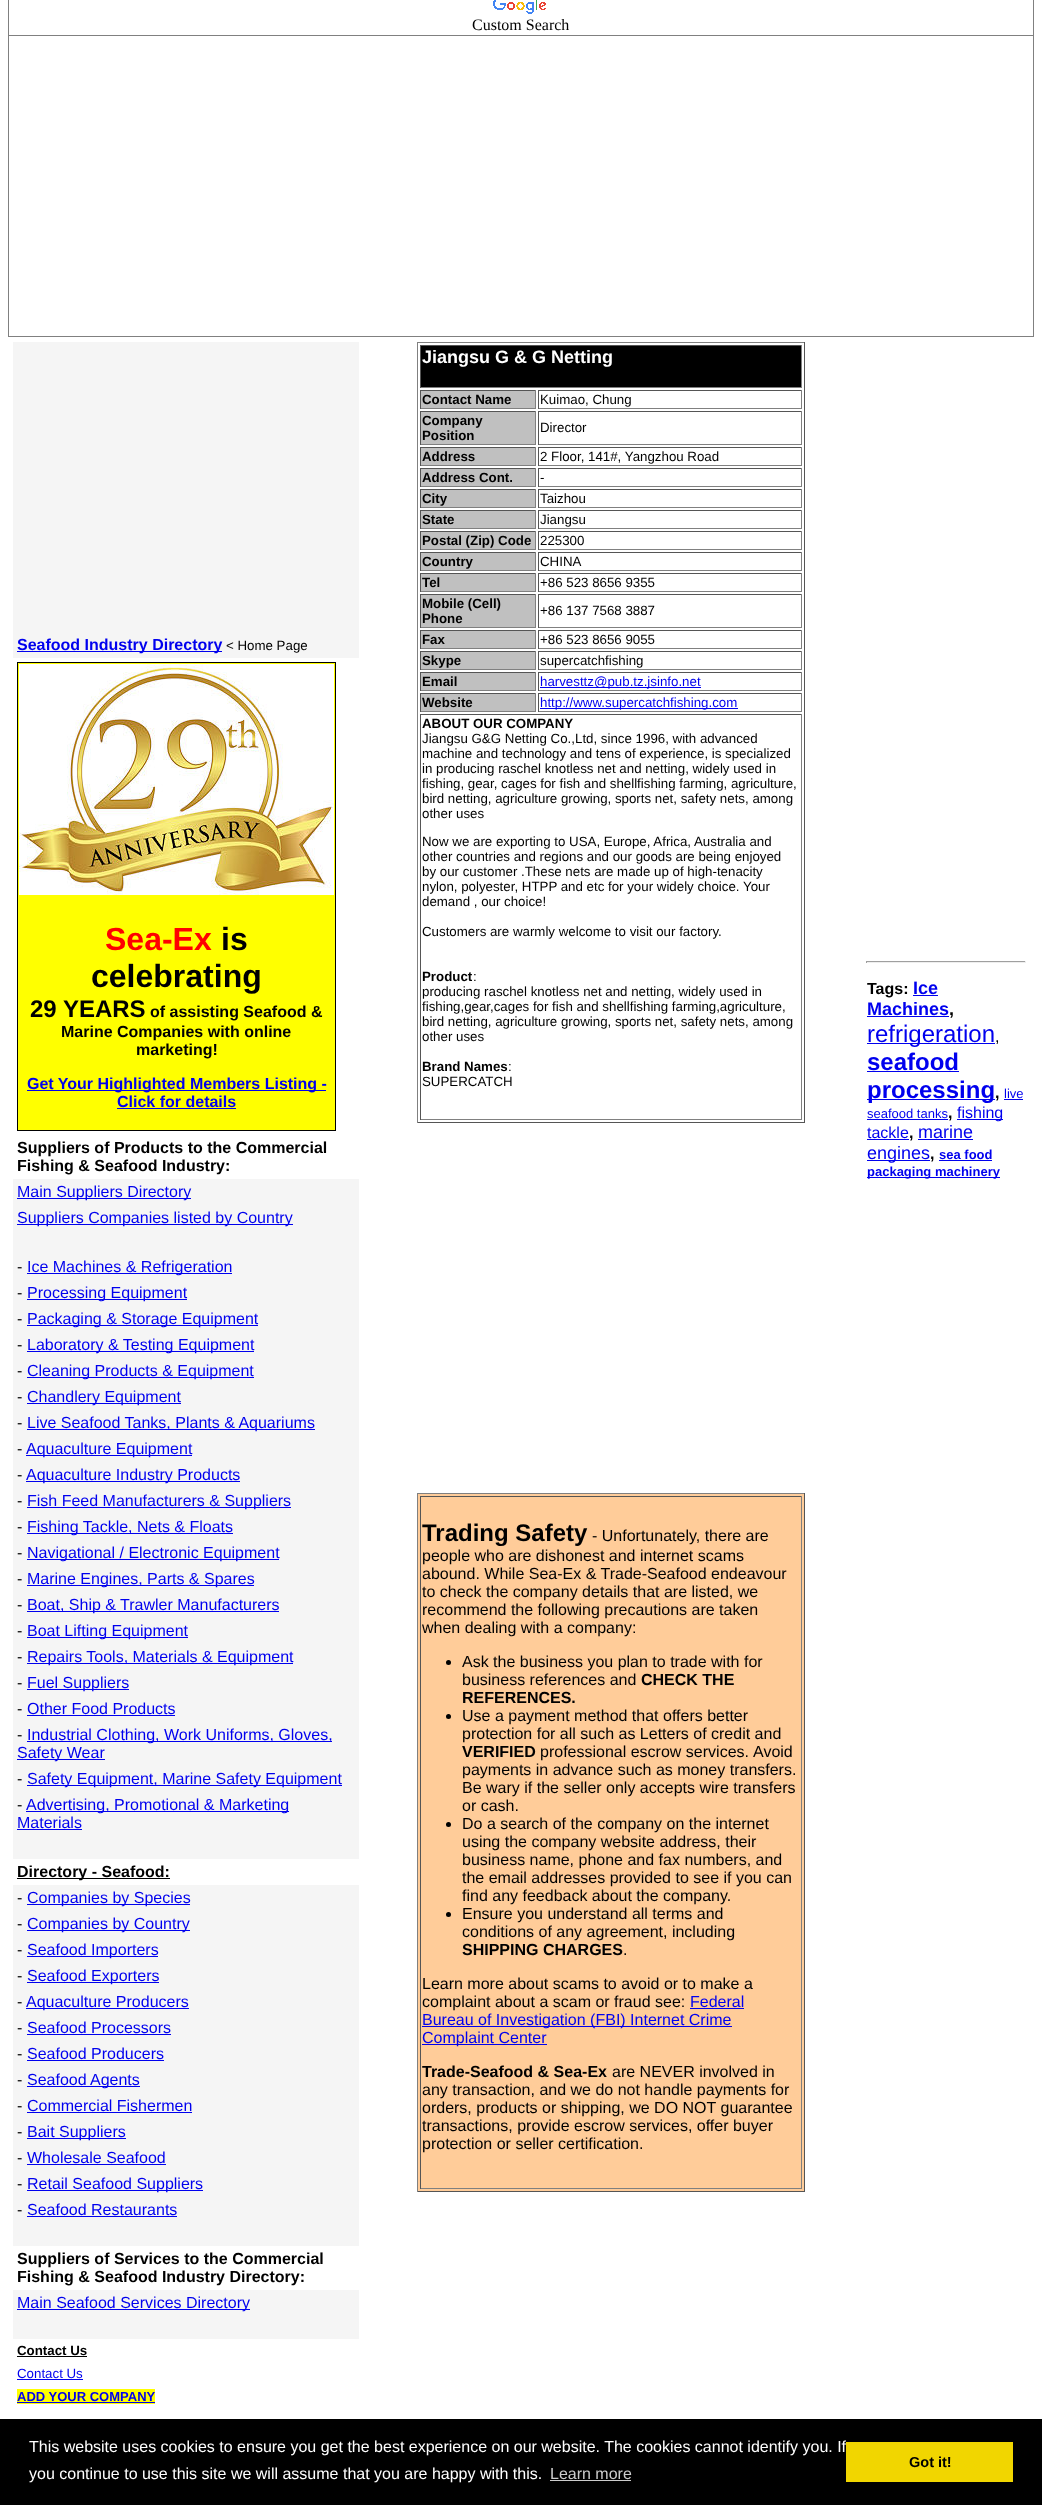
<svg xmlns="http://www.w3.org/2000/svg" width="1042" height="2505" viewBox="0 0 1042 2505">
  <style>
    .t1 { font: 16px Liberation Serif; fill: #000; }
    .t2 { font: bold 16px Liberation Sans; fill: #00e; }
    .t3 { font: 13.3px Liberation Sans; fill: #000; }
    .t4 { font: bold 32px Liberation Sans; fill: #f00; }
    .t5 { font: bold 32px Liberation Sans; fill: #000; }
    .t6 { font: bold 24px Liberation Sans; fill: #000; }
    .t7 { font: bold 16px Liberation Sans; fill: #000; }
    .t8 { font: 16px Liberation Sans; fill: #00e; }
    .t9 { font: 16px Liberation Sans; fill: #000; }
    .t10 { font: bold 13.3px Liberation Sans; fill: #000; }
    .t11 { font: 13.3px Liberation Sans; fill: #00e; }
    .t12 { font: bold 13px Liberation Sans; fill: #00e; }
    .t13 { font: bold 18px Liberation Sans; fill: #fff; }
    .t14 { font: bold 18px Liberation Sans; fill: #00e; }
    .t15 { font: bold 18px Liberation Sans; fill: #000; }
    .t16 { font: 24px Liberation Sans; fill: #00e; }
    .t17 { font: bold 24px Liberation Sans; fill: #00e; }
    .t18 { font: 13px Liberation Sans; fill: #00e; }
    .t19 { font: 18px Liberation Sans; fill: #00e; }
    .t20 { font: 16px Liberation Sans; fill: #fff; }
    .t21 { font: 16px Liberation Sans; fill: #ccc; }
    .t22 { font: bold 14.5px Liberation Sans; fill: #000; }
  </style>
  <rect width="100%" height="100%" fill="#fff"/>
  <rect x="1033" y="0" width="1" height="337" fill="#808080"/>
  <rect x="8" y="336" width="1026" height="1" fill="#808080"/>
  <rect x="8" y="0" width="1" height="337" fill="#808080"/>
  <image x="493" y="0" width="53" height="14" href="images/1.png"/>
  <text x="472" y="30" class="t1">Custom Search</text>
  <rect x="8" y="35" width="1026" height="1" fill="#808080"/>
  <rect x="13" y="342" width="346" height="1997" fill="#f5f5f5"/>
  <rect x="17" y="651" width="205" height="1" fill="#00e"/>
  <text x="17" y="650" class="t2">Seafood Industry Directory</text>
  <text x="226" y="650" class="t3">&lt; Home Page</text>
  <rect x="13" y="658" width="346" height="521" fill="#fff"/>
  <rect x="18" y="663" width="317" height="467" fill="#ff0"/>
  <rect x="17" y="662" width="319" height="1" fill="#000"/>
  <rect x="335" y="662" width="1" height="469" fill="#000"/>
  <rect x="17" y="1130" width="319" height="1" fill="#000"/>
  <rect x="17" y="662" width="1" height="469" fill="#000"/>
  <image x="19" y="664" width="315" height="231" href="images/2.png"/>
  <text x="105" y="950" class="t4">Sea-Ex</text>
  <text x="221" y="950" class="t5">is</text>
  <text x="91" y="987" class="t5">celebrating</text>
  <text x="30" y="1017" class="t6">29 YEARS</text>
  <text x="150" y="1017" class="t7">of assisting Seafood &amp;</text>
  <text x="61" y="1037" class="t7">Marine Companies with online</text>
  <text x="136" y="1055" class="t7">marketing!</text>
  <rect x="27" y="1090" width="299" height="1" fill="#00e"/>
  <text x="27" y="1089" class="t2">Get Your Highlighted Members Listing -</text>
  <text x="117" y="1107" class="t2">Click for details</text>
  <rect x="117" y="1108" width="119" height="1" fill="#00e"/>
  <text x="17" y="1153" class="t7">Suppliers of Products to the Commercial</text>
  <text x="17" y="1171" class="t7">Fishing &amp; Seafood Industry:</text>
  <rect x="17" y="1198" width="174" height="1" fill="#00e"/>
  <text x="17" y="1197" class="t8">Main Suppliers Directory</text>
  <rect x="17" y="1224" width="276" height="1" fill="#00e"/>
  <text x="17" y="1223" class="t8">Suppliers Companies listed by Country</text>
  <text x="17" y="1272" class="t9">-</text>
  <rect x="27" y="1273" width="205" height="1" fill="#00e"/>
  <text x="27" y="1272" class="t8">Ice Machines &amp; Refrigeration</text>
  <text x="17" y="1298" class="t9">-</text>
  <rect x="27" y="1299" width="160" height="1" fill="#00e"/>
  <text x="27" y="1298" class="t8">Processing Equipment</text>
  <text x="17" y="1324" class="t9">-</text>
  <rect x="27" y="1325" width="231" height="1" fill="#00e"/>
  <text x="27" y="1324" class="t8">Packaging &amp; Storage Equipment</text>
  <text x="17" y="1350" class="t9">-</text>
  <rect x="27" y="1351" width="227" height="1" fill="#00e"/>
  <text x="27" y="1350" class="t8">Laboratory &amp; Testing Equipment</text>
  <text x="17" y="1376" class="t9">-</text>
  <rect x="27" y="1377" width="227" height="1" fill="#00e"/>
  <text x="27" y="1376" class="t8">Cleaning Products &amp; Equipment</text>
  <text x="17" y="1402" class="t9">-</text>
  <rect x="27" y="1403" width="154" height="1" fill="#00e"/>
  <text x="27" y="1402" class="t8">Chandlery Equipment</text>
  <text x="17" y="1428" class="t9">-</text>
  <rect x="27" y="1429" width="288" height="1" fill="#00e"/>
  <text x="27" y="1428" class="t8">Live Seafood Tanks, Plants &amp; Aquariums</text>
  <text x="17" y="1454" class="t9">-</text>
  <rect x="26" y="1455" width="166" height="1" fill="#00e"/>
  <text x="26" y="1454" class="t8">Aquaculture Equipment</text>
  <text x="17" y="1480" class="t9">-</text>
  <rect x="26" y="1481" width="214" height="1" fill="#00e"/>
  <text x="26" y="1480" class="t8">Aquaculture Industry Products</text>
  <text x="17" y="1506" class="t9">-</text>
  <rect x="27" y="1507" width="264" height="1" fill="#00e"/>
  <text x="27" y="1506" class="t8">Fish Feed Manufacturers &amp; Suppliers</text>
  <text x="17" y="1532" class="t9">-</text>
  <rect x="27" y="1533" width="206" height="1" fill="#00e"/>
  <text x="27" y="1532" class="t8">Fishing Tackle, Nets &amp; Floats</text>
  <text x="17" y="1558" class="t9">-</text>
  <rect x="27" y="1559" width="252" height="1" fill="#00e"/>
  <text x="27" y="1558" class="t8">Navigational / Electronic Equipment</text>
  <text x="17" y="1584" class="t9">-</text>
  <rect x="27" y="1585" width="227" height="1" fill="#00e"/>
  <text x="27" y="1584" class="t8">Marine Engines, Parts &amp; Spares</text>
  <text x="17" y="1610" class="t9">-</text>
  <rect x="27" y="1611" width="252" height="1" fill="#00e"/>
  <text x="27" y="1610" class="t8">Boat, Ship &amp; Trawler Manufacturers</text>
  <text x="17" y="1636" class="t9">-</text>
  <rect x="27" y="1637" width="161" height="1" fill="#00e"/>
  <text x="27" y="1636" class="t8">Boat Lifting Equipment</text>
  <text x="17" y="1662" class="t9">-</text>
  <rect x="27" y="1663" width="266" height="1" fill="#00e"/>
  <text x="27" y="1662" class="t8">Repairs Tools, Materials &amp; Equipment</text>
  <text x="17" y="1688" class="t9">-</text>
  <rect x="27" y="1689" width="102" height="1" fill="#00e"/>
  <text x="27" y="1688" class="t8">Fuel Suppliers</text>
  <text x="17" y="1714" class="t9">-</text>
  <text x="27" y="1714" class="t8">Other Food Products</text>
  <rect x="27" y="1715" width="148" height="1" fill="#00e"/>
  <text x="17" y="1740" class="t9">-</text>
  <rect x="27" y="1741" width="305" height="1" fill="#00e"/>
  <text x="27" y="1740" class="t8">Industrial Clothing, Work Uniforms, Gloves,</text>
  <rect x="17" y="1759" width="88" height="1" fill="#00e"/>
  <text x="17" y="1758" class="t8">Safety Wear</text>
  <text x="17" y="1784" class="t9">-</text>
  <rect x="27" y="1785" width="315" height="1" fill="#00e"/>
  <text x="27" y="1784" class="t8">Safety Equipment, Marine Safety Equipment</text>
  <text x="17" y="1810" class="t9">-</text>
  <rect x="26" y="1811" width="263" height="1" fill="#00e"/>
  <text x="26" y="1810" class="t8">Advertising, Promotional &amp; Marketing</text>
  <text x="17" y="1828" class="t8">Materials</text>
  <rect x="17" y="1829" width="65" height="1" fill="#00e"/>
  <rect x="13" y="1859" width="346" height="26" fill="#fff"/>
  <rect x="17" y="1878" width="153" height="1" fill="#000"/>
  <text x="17" y="1877" class="t7">Directory - Seafood:</text>
  <text x="17" y="1903" class="t9">-</text>
  <rect x="27" y="1904" width="163" height="1" fill="#00e"/>
  <text x="27" y="1903" class="t8">Companies by Species</text>
  <text x="17" y="1929" class="t9">-</text>
  <rect x="27" y="1930" width="163" height="1" fill="#00e"/>
  <text x="27" y="1929" class="t8">Companies by Country</text>
  <text x="17" y="1955" class="t9">-</text>
  <rect x="27" y="1956" width="131" height="1" fill="#00e"/>
  <text x="27" y="1955" class="t8">Seafood Importers</text>
  <text x="17" y="1981" class="t9">-</text>
  <rect x="27" y="1982" width="132" height="1" fill="#00e"/>
  <text x="27" y="1981" class="t8">Seafood Exporters</text>
  <text x="17" y="2007" class="t9">-</text>
  <rect x="26" y="2008" width="163" height="1" fill="#00e"/>
  <text x="26" y="2007" class="t8">Aquaculture Producers</text>
  <text x="17" y="2033" class="t9">-</text>
  <text x="27" y="2033" class="t8">Seafood Processors</text>
  <rect x="27" y="2034" width="144" height="1" fill="#00e"/>
  <text x="17" y="2059" class="t9">-</text>
  <text x="27" y="2059" class="t8">Seafood Producers</text>
  <rect x="27" y="2060" width="137" height="1" fill="#00e"/>
  <text x="17" y="2085" class="t9">-</text>
  <text x="27" y="2085" class="t8">Seafood</text>
  <rect x="27" y="2086" width="113" height="1" fill="#00e"/>
  <text x="90" y="2085" class="t8">Agents</text>
  <text x="17" y="2111" class="t9">-</text>
  <text x="27" y="2111" class="t8">Commercial Fishermen</text>
  <rect x="27" y="2112" width="165" height="1" fill="#00e"/>
  <text x="17" y="2137" class="t9">-</text>
  <rect x="27" y="2138" width="99" height="1" fill="#00e"/>
  <text x="27" y="2137" class="t8">Bait Suppliers</text>
  <text x="17" y="2163" class="t9">-</text>
  <text x="27" y="2163" class="t8">Wholesale Seafood</text>
  <rect x="27" y="2164" width="139" height="1" fill="#00e"/>
  <text x="17" y="2189" class="t9">-</text>
  <rect x="27" y="2190" width="176" height="1" fill="#00e"/>
  <text x="27" y="2189" class="t8">Retail Seafood Suppliers</text>
  <text x="17" y="2215" class="t9">-</text>
  <text x="27" y="2215" class="t8">Seafood Restaurants</text>
  <rect x="27" y="2216" width="150" height="1" fill="#00e"/>
  <rect x="13" y="2246" width="346" height="44" fill="#fff"/>
  <text x="17" y="2264" class="t7">Suppliers of Services to the Commercial</text>
  <text x="17" y="2282" class="t7">Fishing &amp; Seafood Industry Directory:</text>
  <rect x="17" y="2309" width="233" height="1" fill="#00e"/>
  <text x="17" y="2308" class="t8">Main Seafood Services Directory</text>
  <text x="17" y="2355" class="t10">Contact Us</text>
  <rect x="17" y="2356" width="70" height="1" fill="#000"/>
  <text x="17" y="2378" class="t11">Contact Us</text>
  <rect x="17" y="2379" width="66" height="1" fill="#00e"/>
  <rect x="17" y="2389" width="138" height="15" fill="#ff0"/>
  <text x="17" y="2401" class="t12">ADD YOUR COMPANY</text>
  <rect x="17" y="2402" width="138" height="1" fill="#00e"/>
  <rect x="417" y="342" width="388" height="1" fill="#808080"/>
  <rect x="804" y="342" width="1" height="781" fill="#555"/>
  <rect x="417" y="1122" width="388" height="1" fill="#555"/>
  <rect x="417" y="342" width="1" height="781" fill="#808080"/>
  <rect x="421" y="346" width="380" height="41" fill="#000"/>
  <rect x="420" y="345" width="382" height="1" fill="#555"/>
  <rect x="801" y="345" width="1" height="43" fill="#808080"/>
  <rect x="420" y="387" width="382" height="1" fill="#808080"/>
  <rect x="420" y="345" width="1" height="43" fill="#555"/>
  <text x="422" y="363" class="t13">Jiangsu G &amp; G Netting</text>
  <rect x="421" y="391" width="114" height="17" fill="#c0c0c0"/>
  <rect x="420" y="390" width="116" height="1" fill="#555"/>
  <rect x="535" y="390" width="1" height="19" fill="#808080"/>
  <rect x="420" y="408" width="116" height="1" fill="#808080"/>
  <rect x="420" y="390" width="1" height="19" fill="#555"/>
  <text x="422" y="404" class="t10">Contact Name</text>
  <rect x="538" y="390" width="264" height="1" fill="#555"/>
  <rect x="801" y="390" width="1" height="19" fill="#808080"/>
  <rect x="538" y="408" width="264" height="1" fill="#808080"/>
  <rect x="538" y="390" width="1" height="19" fill="#555"/>
  <text x="540" y="404" class="t3">Kuimao, Chung</text>
  <rect x="421" y="412" width="114" height="32" fill="#c0c0c0"/>
  <rect x="420" y="411" width="116" height="1" fill="#555"/>
  <rect x="535" y="411" width="1" height="34" fill="#808080"/>
  <rect x="420" y="444" width="116" height="1" fill="#808080"/>
  <rect x="420" y="411" width="1" height="34" fill="#555"/>
  <text x="422" y="425" class="t10">Company</text>
  <text x="422" y="440" class="t10">Position</text>
  <rect x="538" y="411" width="264" height="1" fill="#555"/>
  <rect x="801" y="411" width="1" height="34" fill="#808080"/>
  <rect x="538" y="444" width="264" height="1" fill="#808080"/>
  <rect x="538" y="411" width="1" height="34" fill="#555"/>
  <text x="540" y="432" class="t3">Director</text>
  <rect x="421" y="448" width="114" height="17" fill="#c0c0c0"/>
  <rect x="420" y="447" width="116" height="1" fill="#555"/>
  <rect x="535" y="447" width="1" height="19" fill="#808080"/>
  <rect x="420" y="465" width="116" height="1" fill="#808080"/>
  <rect x="420" y="447" width="1" height="19" fill="#555"/>
  <text x="422" y="461" class="t10">Address</text>
  <rect x="538" y="447" width="264" height="1" fill="#555"/>
  <rect x="801" y="447" width="1" height="19" fill="#808080"/>
  <rect x="538" y="465" width="264" height="1" fill="#808080"/>
  <rect x="538" y="447" width="1" height="19" fill="#555"/>
  <text x="540" y="461" class="t3">2 Floor, 141#, Yangzhou Road</text>
  <rect x="421" y="469" width="114" height="17" fill="#c0c0c0"/>
  <rect x="420" y="468" width="116" height="1" fill="#555"/>
  <rect x="535" y="468" width="1" height="19" fill="#808080"/>
  <rect x="420" y="486" width="116" height="1" fill="#808080"/>
  <rect x="420" y="468" width="1" height="19" fill="#555"/>
  <text x="422" y="482" class="t10">Address Cont.</text>
  <rect x="538" y="468" width="264" height="1" fill="#555"/>
  <rect x="801" y="468" width="1" height="19" fill="#808080"/>
  <rect x="538" y="486" width="264" height="1" fill="#808080"/>
  <rect x="538" y="468" width="1" height="19" fill="#555"/>
  <text x="540" y="482" class="t3">-</text>
  <rect x="421" y="490" width="114" height="17" fill="#c0c0c0"/>
  <rect x="420" y="489" width="116" height="1" fill="#555"/>
  <rect x="535" y="489" width="1" height="19" fill="#808080"/>
  <rect x="420" y="507" width="116" height="1" fill="#808080"/>
  <rect x="420" y="489" width="1" height="19" fill="#555"/>
  <text x="422" y="503" class="t10">City</text>
  <rect x="538" y="489" width="264" height="1" fill="#555"/>
  <rect x="801" y="489" width="1" height="19" fill="#808080"/>
  <rect x="538" y="507" width="264" height="1" fill="#808080"/>
  <rect x="538" y="489" width="1" height="19" fill="#555"/>
  <text x="540" y="503" class="t3">Taizhou</text>
  <rect x="421" y="511" width="114" height="17" fill="#c0c0c0"/>
  <rect x="420" y="510" width="116" height="1" fill="#555"/>
  <rect x="535" y="510" width="1" height="19" fill="#808080"/>
  <rect x="420" y="528" width="116" height="1" fill="#808080"/>
  <rect x="420" y="510" width="1" height="19" fill="#555"/>
  <text x="422" y="524" class="t10">State</text>
  <rect x="538" y="510" width="264" height="1" fill="#555"/>
  <rect x="801" y="510" width="1" height="19" fill="#808080"/>
  <rect x="538" y="528" width="264" height="1" fill="#808080"/>
  <rect x="538" y="510" width="1" height="19" fill="#555"/>
  <text x="540" y="524" class="t3">Jiangsu</text>
  <rect x="421" y="532" width="114" height="17" fill="#c0c0c0"/>
  <rect x="420" y="531" width="116" height="1" fill="#555"/>
  <rect x="535" y="531" width="1" height="19" fill="#808080"/>
  <rect x="420" y="549" width="116" height="1" fill="#808080"/>
  <rect x="420" y="531" width="1" height="19" fill="#555"/>
  <text x="422" y="545" class="t10">Postal (Zip) Code</text>
  <rect x="538" y="531" width="264" height="1" fill="#555"/>
  <rect x="801" y="531" width="1" height="19" fill="#808080"/>
  <rect x="538" y="549" width="264" height="1" fill="#808080"/>
  <rect x="538" y="531" width="1" height="19" fill="#555"/>
  <text x="540" y="545" class="t3">225300</text>
  <rect x="421" y="553" width="114" height="17" fill="#c0c0c0"/>
  <rect x="420" y="552" width="116" height="1" fill="#555"/>
  <rect x="535" y="552" width="1" height="19" fill="#808080"/>
  <rect x="420" y="570" width="116" height="1" fill="#808080"/>
  <rect x="420" y="552" width="1" height="19" fill="#555"/>
  <text x="422" y="566" class="t10">Country</text>
  <rect x="538" y="552" width="264" height="1" fill="#555"/>
  <rect x="801" y="552" width="1" height="19" fill="#808080"/>
  <rect x="538" y="570" width="264" height="1" fill="#808080"/>
  <rect x="538" y="552" width="1" height="19" fill="#555"/>
  <text x="540" y="566" class="t3">CHINA</text>
  <rect x="421" y="574" width="114" height="17" fill="#c0c0c0"/>
  <rect x="420" y="573" width="116" height="1" fill="#555"/>
  <rect x="535" y="573" width="1" height="19" fill="#808080"/>
  <rect x="420" y="591" width="116" height="1" fill="#808080"/>
  <rect x="420" y="573" width="1" height="19" fill="#555"/>
  <text x="422" y="587" class="t10">Tel</text>
  <rect x="538" y="573" width="264" height="1" fill="#555"/>
  <rect x="801" y="573" width="1" height="19" fill="#808080"/>
  <rect x="538" y="591" width="264" height="1" fill="#808080"/>
  <rect x="538" y="573" width="1" height="19" fill="#555"/>
  <text x="540" y="587" class="t3">+86 523 8656 9355</text>
  <rect x="421" y="595" width="114" height="32" fill="#c0c0c0"/>
  <rect x="420" y="594" width="116" height="1" fill="#555"/>
  <rect x="535" y="594" width="1" height="34" fill="#808080"/>
  <rect x="420" y="627" width="116" height="1" fill="#808080"/>
  <rect x="420" y="594" width="1" height="34" fill="#555"/>
  <text x="422" y="608" class="t10">Mobile (Cell)</text>
  <text x="422" y="623" class="t10">Phone</text>
  <rect x="538" y="594" width="264" height="1" fill="#555"/>
  <rect x="801" y="594" width="1" height="34" fill="#808080"/>
  <rect x="538" y="627" width="264" height="1" fill="#808080"/>
  <rect x="538" y="594" width="1" height="34" fill="#555"/>
  <text x="540" y="615" class="t3">+86 137 7568 3887</text>
  <rect x="421" y="631" width="114" height="17" fill="#c0c0c0"/>
  <rect x="420" y="630" width="116" height="1" fill="#555"/>
  <rect x="535" y="630" width="1" height="19" fill="#808080"/>
  <rect x="420" y="648" width="116" height="1" fill="#808080"/>
  <rect x="420" y="630" width="1" height="19" fill="#555"/>
  <text x="422" y="644" class="t10">Fax</text>
  <rect x="538" y="630" width="264" height="1" fill="#555"/>
  <rect x="801" y="630" width="1" height="19" fill="#808080"/>
  <rect x="538" y="648" width="264" height="1" fill="#808080"/>
  <rect x="538" y="630" width="1" height="19" fill="#555"/>
  <text x="540" y="644" class="t3">+86 523 8656 9055</text>
  <rect x="421" y="652" width="114" height="17" fill="#c0c0c0"/>
  <rect x="420" y="651" width="116" height="1" fill="#555"/>
  <rect x="535" y="651" width="1" height="19" fill="#808080"/>
  <rect x="420" y="669" width="116" height="1" fill="#808080"/>
  <rect x="420" y="651" width="1" height="19" fill="#555"/>
  <text x="422" y="665" class="t10">Skype</text>
  <rect x="538" y="651" width="264" height="1" fill="#555"/>
  <rect x="801" y="651" width="1" height="19" fill="#808080"/>
  <rect x="538" y="669" width="264" height="1" fill="#808080"/>
  <rect x="538" y="651" width="1" height="19" fill="#555"/>
  <text x="540" y="665" class="t3">supercatchfishing</text>
  <rect x="421" y="673" width="114" height="17" fill="#c0c0c0"/>
  <rect x="420" y="672" width="116" height="1" fill="#555"/>
  <rect x="535" y="672" width="1" height="19" fill="#808080"/>
  <rect x="420" y="690" width="116" height="1" fill="#808080"/>
  <rect x="420" y="672" width="1" height="19" fill="#555"/>
  <text x="422" y="686" class="t10">Email</text>
  <rect x="538" y="672" width="264" height="1" fill="#555"/>
  <rect x="801" y="672" width="1" height="19" fill="#808080"/>
  <rect x="538" y="690" width="264" height="1" fill="#808080"/>
  <rect x="538" y="672" width="1" height="19" fill="#555"/>
  <rect x="540" y="687" width="161" height="1" fill="#00e"/>
  <text x="540" y="686" class="t11">harvesttz@pub.tz.jsinfo.net</text>
  <rect x="421" y="694" width="114" height="17" fill="#c0c0c0"/>
  <rect x="420" y="693" width="116" height="1" fill="#555"/>
  <rect x="535" y="693" width="1" height="19" fill="#808080"/>
  <rect x="420" y="711" width="116" height="1" fill="#808080"/>
  <rect x="420" y="693" width="1" height="19" fill="#555"/>
  <text x="422" y="707" class="t10">Website</text>
  <rect x="538" y="693" width="264" height="1" fill="#555"/>
  <rect x="801" y="693" width="1" height="19" fill="#808080"/>
  <rect x="538" y="711" width="264" height="1" fill="#808080"/>
  <rect x="538" y="693" width="1" height="19" fill="#555"/>
  <rect x="540" y="708" width="198" height="1" fill="#00e"/>
  <text x="540" y="707" class="t11">http://www.supercatchfishing.com</text>
  <rect x="420" y="714" width="382" height="1" fill="#555"/>
  <rect x="801" y="714" width="1" height="406" fill="#808080"/>
  <rect x="420" y="1119" width="382" height="1" fill="#808080"/>
  <rect x="420" y="714" width="1" height="406" fill="#555"/>
  <text x="422" y="728" class="t10">ABOUT OUR COMPANY</text>
  <text x="422" y="743" class="t3">Jiangsu G&amp;G Netting Co.,Ltd, since 1996, with advanced</text>
  <text x="422" y="758" class="t3">machine and technology and tens of experience, is specialized</text>
  <text x="422" y="773" class="t3">in producing raschel knotless net and netting, widely used in</text>
  <text x="422" y="788" class="t3">fishing, gear, cages for fish and shellfishing farming, agriculture,</text>
  <text x="422" y="803" class="t3">bird netting, agriculture growing, sports net, safety nets, among</text>
  <text x="422" y="818" class="t3">other uses</text>
  <text x="422" y="846" class="t3">Now we are exporting to USA, Europe, Africa, Australia and</text>
  <text x="422" y="861" class="t3">other countries and regions and our goods are being enjoyed</text>
  <text x="422" y="876" class="t3">by our customer .These nets are made up of high-tenacity</text>
  <text x="422" y="891" class="t3">nylon, polyester, HTPP and etc for your widely choice. Your</text>
  <text x="422" y="906" class="t3">demand , our choice!</text>
  <text x="422" y="936" class="t3">Customers are warmly welcome to visit our factory.</text>
  <text x="422" y="981" class="t10">Product</text>
  <text x="473" y="981" class="t3">:</text>
  <text x="422" y="996" class="t3">producing raschel knotless net and netting, widely used in</text>
  <text x="422" y="1011" class="t3">fishing,gear,cages for fish and shellfishing farming,agriculture,</text>
  <text x="422" y="1026" class="t3">bird netting, agriculture growing, sports net, safety nets, among</text>
  <text x="422" y="1041" class="t3">other uses</text>
  <text x="422" y="1071" class="t10">Brand Names</text>
  <text x="508" y="1071" class="t3">:</text>
  <text x="422" y="1086" class="t3">SUPERCATCH</text>
  <rect x="418" y="1494" width="386" height="697" fill="#fc9"/>
  <rect x="417" y="1493" width="388" height="1" fill="#808080"/>
  <rect x="804" y="1493" width="1" height="699" fill="#555"/>
  <rect x="417" y="2191" width="388" height="1" fill="#555"/>
  <rect x="417" y="1493" width="1" height="699" fill="#808080"/>
  <rect x="420" y="1496" width="382" height="1" fill="#555"/>
  <rect x="801" y="1496" width="1" height="693" fill="#808080"/>
  <rect x="420" y="2188" width="382" height="1" fill="#808080"/>
  <rect x="420" y="1496" width="1" height="693" fill="#555"/>
  <text x="422" y="1541" class="t6">Trading Safety</text>
  <text x="592" y="1541" class="t9">- Unfortunately, there are</text>
  <text x="422" y="1561" class="t9">people who are dishonest and internet scams</text>
  <text x="422" y="1579" class="t9">abound. While Sea-Ex &amp; Trade-Seafood endeavour</text>
  <text x="422" y="1597" class="t9">to check the company details that are listed, we</text>
  <text x="422" y="1615" class="t9">recommend the following precautions are taken</text>
  <text x="422" y="1633" class="t9">when dealing with a company:</text>
  <circle cx="448.5" cy="1662.5" r="2.5" fill="#000"/>
  <text x="462" y="1667" class="t9">Ask the business you plan to trade with for</text>
  <text x="462" y="1685" class="t9">business references and</text>
  <text x="641" y="1685" class="t7">CHECK THE</text>
  <text x="462" y="1703" class="t7">REFERENCES.</text>
  <circle cx="448.5" cy="1716.5" r="2.5" fill="#000"/>
  <text x="462" y="1721" class="t9">Use a payment method that offers better</text>
  <text x="462" y="1739" class="t9">protection for all such as Letters of credit and</text>
  <text x="462" y="1757" class="t7">VERIFIED</text>
  <text x="540" y="1757" class="t9">professional escrow services.</text>
  <text x="753" y="1757" class="t9">Avoid</text>
  <text x="462" y="1775" class="t9">payments in advance such as money transfers.</text>
  <text x="462" y="1793" class="t9">Be wary if the seller only accepts wire transfers</text>
  <text x="462" y="1811" class="t9">or cash.</text>
  <circle cx="448.5" cy="1824.5" r="2.5" fill="#000"/>
  <text x="462" y="1829" class="t9">Do a search of the company on the internet</text>
  <text x="462" y="1847" class="t9">using the company website address, their</text>
  <text x="462" y="1865" class="t9">business name, phone and fax numbers, and</text>
  <text x="462" y="1883" class="t9">the email addresses provided to see if you can</text>
  <text x="462" y="1901" class="t9">find any feedback about the company.</text>
  <circle cx="448.5" cy="1914.5" r="2.5" fill="#000"/>
  <text x="462" y="1919" class="t9">Ensure you understand all terms and</text>
  <text x="462" y="1937" class="t9">conditions of any agreement, including</text>
  <text x="462" y="1955" class="t7">SHIPPING CHARGES</text>
  <text x="623" y="1955" class="t9">.</text>
  <text x="422" y="1989" class="t9">Learn more about scams to avoid or to make a</text>
  <text x="422" y="2007" class="t9">complaint about a scam or fraud see:</text>
  <text x="690" y="2007" class="t8">Federal</text>
  <rect x="690" y="2008" width="54" height="1" fill="#00e"/>
  <rect x="422" y="2026" width="310" height="1" fill="#00e"/>
  <text x="422" y="2025" class="t8">Bureau of Investigation (FBI) Internet Crime</text>
  <rect x="422" y="2044" width="125" height="1" fill="#00e"/>
  <text x="422" y="2043" class="t8">Complaint Center</text>
  <text x="422" y="2077" class="t7">Trade-Seafood &amp; Sea-Ex</text>
  <text x="612" y="2077" class="t9">are NEVER involved in</text>
  <text x="422" y="2095" class="t9">any transaction, and we do not handle payments for</text>
  <text x="422" y="2113" class="t9">orders, products or shipping, we DO NOT guarantee</text>
  <text x="422" y="2131" class="t9">transactions, provide escrow services, offer buyer</text>
  <text x="422" y="2149" class="t9">protection or seller certification.</text>
  <rect x="866" y="961" width="160" height="1" fill="#9f9f9f"/>
  <rect x="1025" y="961" width="1" height="2" fill="#eee"/>
  <rect x="866" y="962" width="160" height="1" fill="#eee"/>
  <rect x="866" y="961" width="1" height="2" fill="#9f9f9f"/>
  <text x="867" y="994" class="t7">Tags:</text>
  <text x="913" y="994" class="t14">Ice</text>
  <rect x="913" y="995" width="25" height="1" fill="#00e"/>
  <text x="867" y="1015" class="t14">Machines</text>
  <text x="949" y="1015" class="t15">,</text>
  <rect x="867" y="1016" width="82" height="1" fill="#00e"/>
  <rect x="867" y="1043" width="128" height="1" fill="#00e"/>
  <text x="867" y="1042" class="t16">refrigeration</text>
  <text x="995" y="1042" class="t9">,</text>
  <text x="867" y="1070" class="t17">seafood</text>
  <rect x="867" y="1071" width="92" height="1" fill="#00e"/>
  <rect x="867" y="1099" width="128" height="1" fill="#00e"/>
  <text x="867" y="1098" class="t17">processing</text>
  <text x="995" y="1098" class="t7">,</text>
  <rect x="1004" y="1099" width="19" height="1" fill="#00e"/>
  <text x="1004" y="1098" class="t18">live</text>
  <text x="867" y="1118" class="t18">seafood tanks</text>
  <text x="948" y="1118" class="t7">,</text>
  <rect x="867" y="1119" width="81" height="1" fill="#00e"/>
  <rect x="957" y="1119" width="46" height="1" fill="#00e"/>
  <text x="957" y="1118" class="t8">fishing</text>
  <text x="867" y="1138" class="t8">tackle</text>
  <text x="909" y="1138" class="t7">,</text>
  <rect x="867" y="1139" width="42" height="1" fill="#00e"/>
  <rect x="918" y="1139" width="55" height="1" fill="#00e"/>
  <text x="918" y="1138" class="t19">marine</text>
  <rect x="867" y="1160" width="63" height="1" fill="#00e"/>
  <text x="867" y="1159" class="t19">engines</text>
  <text x="930" y="1159" class="t7">,</text>
  <rect x="939" y="1160" width="53" height="1" fill="#00e"/>
  <text x="939" y="1159" class="t12">sea food</text>
  <rect x="867" y="1177" width="133" height="1" fill="#00e"/>
  <text x="867" y="1176" class="t12">packaging machinery</text>
  <rect x="0" y="2419" width="1042" height="86" fill="#000"/>
  <text x="29" y="2452" class="t20">This website uses cookies to ensure you get the best experience on our website. The cookies cannot identify you. If</text>
  <text x="29" y="2479" class="t20">you continue to use this site we will assume that you are happy with this.</text>
  <text x="550" y="2479" class="t21">Learn more</text>
  <rect x="550" y="2480" width="81" height="1" fill="#ccc"/>
  <rect x="846" y="2442" width="167" height="40" fill="#f1d600"/>
  <text x="909" y="2467" class="t22">Got it!</text>
</svg>
